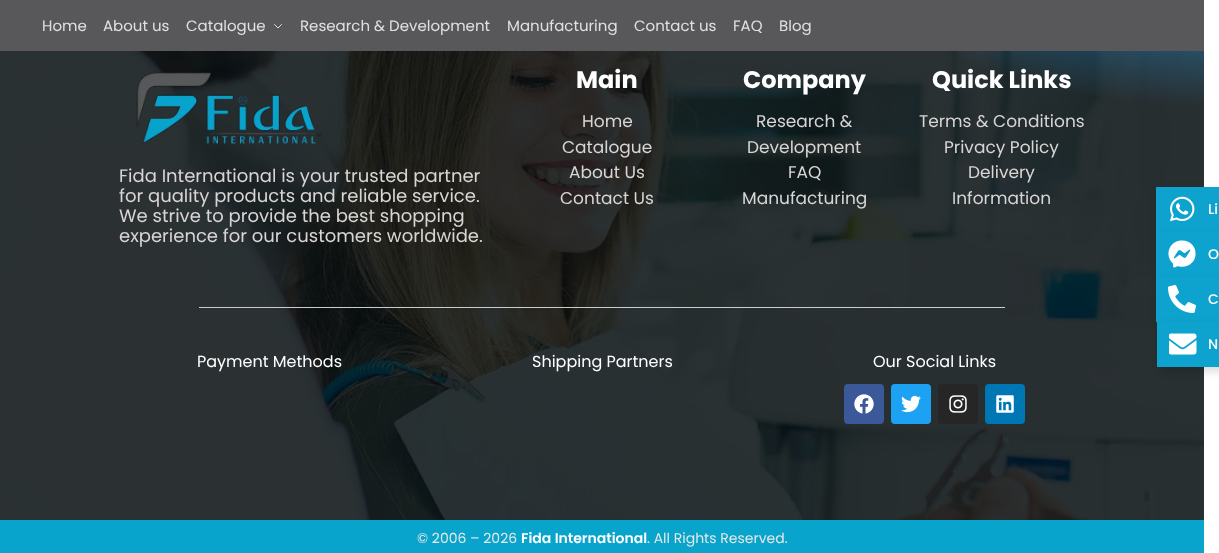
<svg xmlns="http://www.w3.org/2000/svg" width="1219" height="553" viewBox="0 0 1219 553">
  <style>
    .t1 { font: 15px Poppins; fill: #e0e0e0; }
    .t2 { font: 18px Poppins; fill: #d9d5d5; }
    .t3 { font: bold 24px Poppins; fill: #fff; }
    .t4 { font: 17px Poppins; fill: #d9d5d5; }
    .t5 { font: 16px Poppins; fill: #fff; }
    .t6 { font: 14px Poppins; fill: #e7e7e7; }
    .t7 { font: 600 14px Poppins; fill: #fff; }
    .t8 { font: 500 14px Poppins; fill: #fff; }
  </style>
  <rect width="100%" height="100%" fill="#fff"/>
  <rect x="0" y="0" width="1204" height="51" fill="#58585a"/>
  <text x="42" y="31" class="t1">Home</text>
  <text x="103" y="31" class="t1">About us</text>
  <text x="186" y="31" class="t1">Catalogue</text>
  <path d="M281.5 24.5L278 28L274.5 24.5" fill="none" stroke="#e0e0e0" stroke-linecap="round" stroke-linejoin="round"/>
  <text x="300" y="31" class="t1">Research &amp; Development</text>
  <text x="507" y="31" class="t1">Manufacturing</text>
  <text x="634" y="31" class="t1">Contact us</text>
  <text x="733" y="31" class="t1">FAQ</text>
  <text x="779" y="31" class="t1">Blog</text>
  <image x="0" y="51" width="1204" height="469" href="images/1.png"/>
  <image x="136" y="72" width="186" height="72" href="images/2.png"/>
  <text x="119" y="182" class="t2">Fida International is your trusted partner</text>
  <text x="119" y="202" class="t2">for quality products and reliable service.</text>
  <text x="119" y="222" class="t2">We strive to provide the best shopping</text>
  <text x="119" y="242" class="t2">experience for our customers worldwide.</text>
  <text x="576" y="88" class="t3">Main</text>
  <text x="582" y="127" class="t4">Home</text>
  <text x="562" y="153" class="t4">Catalogue</text>
  <text x="569" y="178" class="t4">About Us</text>
  <text x="560" y="204" class="t4">Contact Us</text>
  <text x="743" y="88" class="t3">Company</text>
  <text x="756" y="127" class="t4">Research &amp;</text>
  <text x="747" y="153" class="t4">Development</text>
  <text x="788" y="178" class="t4">FAQ</text>
  <text x="742" y="204" class="t4">Manufacturing</text>
  <text x="932" y="88" class="t3">Quick Links</text>
  <text x="919" y="127" class="t4">Terms &amp; Conditions</text>
  <text x="944" y="153" class="t4">Privacy Policy</text>
  <text x="968" y="178" class="t4">Delivery</text>
  <text x="952" y="204" class="t4">Information</text>
  <rect x="199" y="307" width="806" height="1" fill="#ccc"/>
  <text x="197" y="367" class="t5">Payment Methods</text>
  <text x="532" y="367" class="t5">Shipping Partners</text>
  <text x="873" y="367" class="t5">Our Social Links</text>
  <rect x="844" y="384" width="40" height="40" rx="4" fill="#3b5998"/>
  <image x="854" y="394" width="20" height="20" href="images/3.png"/>
  <rect x="891" y="384" width="40" height="40" rx="4" fill="#1da1f2"/>
  <image x="901" y="395" width="20" height="18" href="images/4.png"/>
  <rect x="938" y="384" width="40" height="40" rx="4" fill="#262626"/>
  <image x="949" y="395" width="18" height="18" href="images/5.png"/>
  <rect x="985" y="384" width="40" height="40" rx="4" fill="#0077b5"/>
  <image x="996" y="395" width="18" height="18" href="images/6.png"/>
  <rect x="0" y="520" width="1204" height="33" fill="#08a4cc"/>
  <text x="417" y="543" class="t6">© 2006 – 2026</text>
  <text x="521" y="543" class="t7">Fida International</text>
  <text x="647" y="543" class="t6">. All Rights Reserved.</text>
  <rect x="1160" y="191" width="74" height="45" fill="#00000026" filter="blur(5px)"/>
  <rect x="1156" y="187" width="63" height="45" fill="#0ea3ce"/>
  <image x="1170" y="196" width="25" height="26" href="images/7.png"/>
  <text x="1208" y="214" class="t8">Li</text>
  <rect x="1160" y="236" width="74" height="45" fill="#00000026" filter="blur(5px)"/>
  <rect x="1156" y="232" width="63" height="45" fill="#0ea3ce"/>
  <image x="1168" y="240" width="28" height="28" href="images/8.png"/>
  <text x="1208" y="259" class="t8">O</text>
  <rect x="1160" y="281" width="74" height="45" fill="#00000026" filter="blur(5px)"/>
  <rect x="1156" y="277" width="63" height="45" fill="#0ea3ce"/>
  <image x="1168" y="285" width="28" height="28" href="images/9.png"/>
  <text x="1208" y="304" class="t8">C</text>
  <rect x="1161" y="326" width="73" height="45" fill="#00000026" filter="blur(5px)"/>
  <rect x="1157" y="322" width="62" height="45" fill="#0ea3ce"/>
  <image x="1169" y="333" width="28" height="22" href="images/10.png"/>
  <text x="1208" y="349" class="t8">N</text>
</svg>
